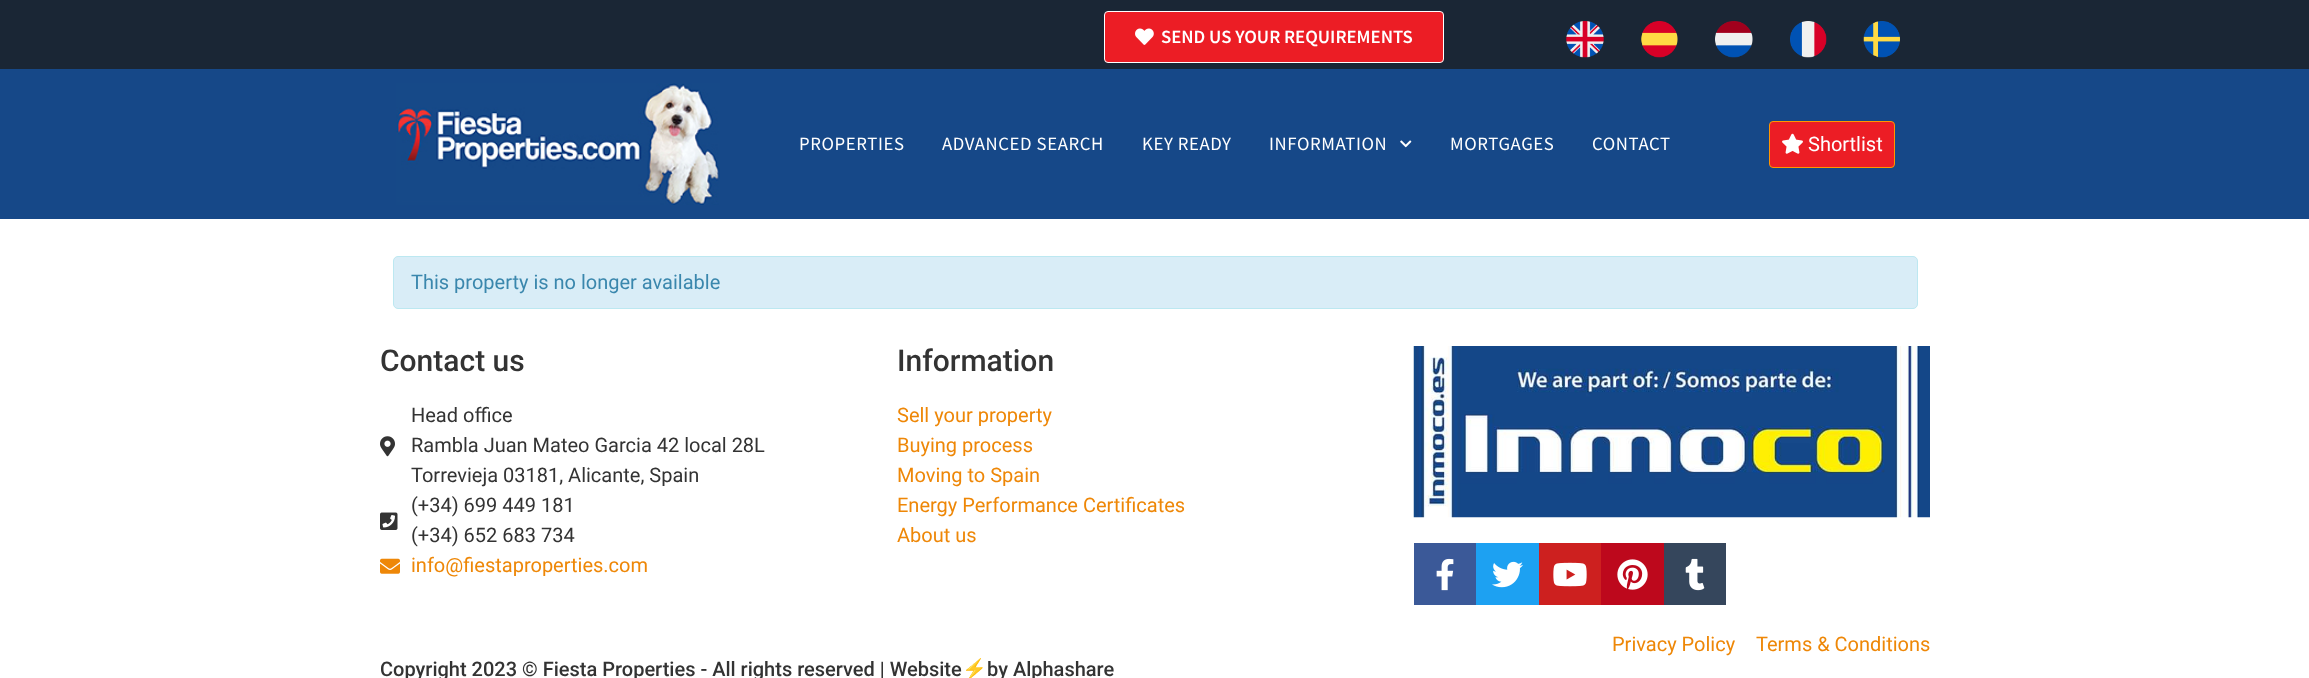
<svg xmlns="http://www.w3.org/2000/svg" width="2309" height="678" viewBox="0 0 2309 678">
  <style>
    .t1 { font: 600 18.75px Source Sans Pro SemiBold; fill: #fff; }
    .t2 { font: 18.75px Source Sans Pro; letter-spacing: 0.6px; fill: #fff; }
    .t3 { font: 20px Roboto; fill: #fff; }
    .t4 { font: 20px Roboto; fill: #3a87ad; }
    .t5 { font: 500 30px Roboto; fill: #333; }
    .t6 { font: 20px Roboto; fill: #333; }
    .t7 { font: 20px Roboto; fill: #ee8707; }
    .t8 { font: 500 20px Roboto; fill: #333; }
    .t9 { font: 20px Noto Color Emoji; fill: #333; }
  </style>
  <rect width="100%" height="100%" fill="#fff"/>
  <rect x="0" y="0" width="2309" height="69" fill="#1a2635"/>
  <rect x="1104.5" y="11.5" width="339" height="51" rx="3.5" fill="#ec1d25" stroke="#fff"/>
  <image x="1135" y="28" width="19" height="17" href="images/1.png"/>
  <text x="1161" y="43" class="t1">SEND US YOUR REQUIREMENTS</text>
  <image x="1566" y="21" width="38" height="37" href="images/2.png"/>
  <image x="1641" y="21" width="37" height="37" href="images/3.png"/>
  <image x="1715" y="21" width="38" height="37" href="images/4.png"/>
  <image x="1790" y="21" width="37" height="37" href="images/5.png"/>
  <image x="1863" y="21" width="37" height="37" href="images/6.png"/>
  <rect x="0" y="69" width="2309" height="150" fill="#164888"/>
  <image x="396" y="83" width="324" height="122" href="images/7.png"/>
  <text x="799" y="150" class="t2">PROPERTIES</text>
  <text x="942" y="150" class="t2">ADVANCED SEARCH</text>
  <text x="1142" y="150" class="t2">KEY READY</text>
  <text x="1269" y="150" class="t2">INFORMATION</text>
  <image x="1400" y="140" width="12" height="8" href="images/8.png"/>
  <text x="1450" y="150" class="t2">MORTGAGES</text>
  <text x="1592" y="150" class="t2">CONTACT</text>
  <rect x="1769.5" y="121.5" width="125" height="46" rx="3.5" fill="#ec1d25" stroke="#ff9600"/>
  <image x="1782" y="133" width="21" height="21" href="images/9.png"/>
  <text x="1808" y="151" class="t3">Shortlist</text>
  <rect x="393.5" y="256.5" width="1524" height="52" rx="4.5" fill="#d9edf7" stroke="#bce8f1"/>
  <text x="411" y="289" class="t4">This property is no longer available</text>
  <text x="380" y="371" class="t5">Contact us</text>
  <image x="380" y="436" width="15" height="21" href="images/10.png"/>
  <text x="411" y="422" class="t6">Head office</text>
  <text x="411" y="452" class="t6">Rambla Juan Mateo Garcia 42 local 28L</text>
  <text x="411" y="482" class="t6">Torrevieja 03181, Alicante, Spain</text>
  <image x="380" y="512" width="18" height="18" href="images/11.png"/>
  <text x="411" y="512" class="t6">(+34) 699 449 181</text>
  <text x="411" y="542" class="t6">(+34) 652 683 734</text>
  <image x="380" y="558" width="20" height="16" href="images/12.png"/>
  <text x="411" y="572" class="t7">info@fiestaproperties.com</text>
  <text x="897" y="371" class="t5">Information</text>
  <text x="897" y="422" class="t7">Sell your property</text>
  <text x="897" y="452" class="t7">Buying process</text>
  <text x="897" y="482" class="t7">Moving to Spain</text>
  <text x="897" y="512" class="t7">Energy Performance Certificates</text>
  <text x="897" y="542" class="t7">About us</text>
  <image x="1413" y="346" width="517" height="172" href="images/13.png"/>
  <rect x="1414" y="543" width="62" height="62" fill="#3b5998"/>
  <image x="1436" y="558" width="18" height="33" href="images/14.png"/>
  <rect x="1476" y="543" width="63" height="62" fill="#1da1f2"/>
  <image x="1492" y="561" width="31" height="27" href="images/15.png"/>
  <rect x="1539" y="543" width="62" height="62" fill="#cd201f"/>
  <image x="1553" y="562" width="34" height="25" href="images/16.png"/>
  <rect x="1601" y="543" width="63" height="62" fill="#bd081c"/>
  <image x="1617" y="559" width="31" height="31" href="images/17.png"/>
  <rect x="1664" y="543" width="62" height="62" fill="#35465c"/>
  <image x="1685" y="558" width="20" height="33" href="images/18.png"/>
  <text x="1612" y="651" class="t7">Privacy Policy</text>
  <text x="1756" y="651" class="t7">Terms &amp; Conditions</text>
  <text x="380" y="676" class="t8">Copyright 2023 © Fiesta Properties - All rights reserved | Website</text>
  <text x="962" y="676" class="t9">⚡</text>
  <text x="987" y="676" class="t8">by Alphashare</text>
</svg>
